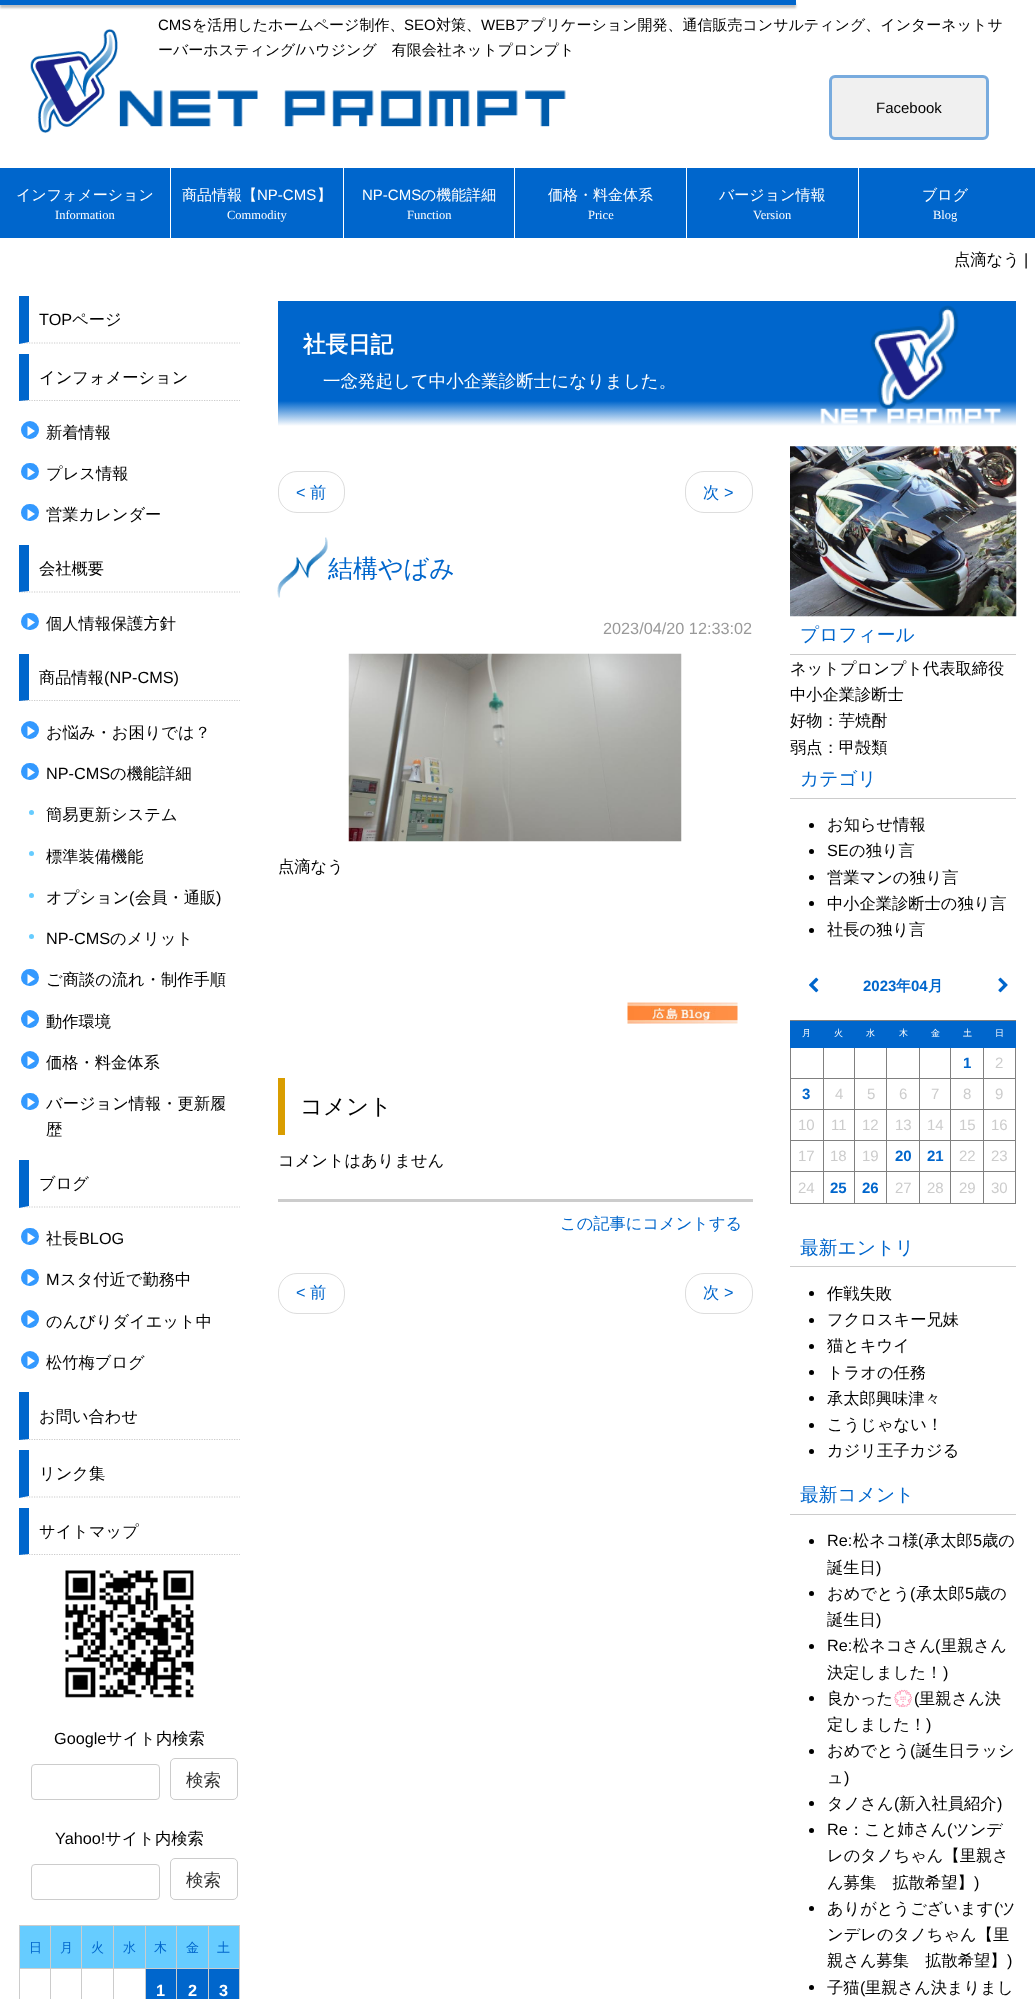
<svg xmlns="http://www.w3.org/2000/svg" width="1035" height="1999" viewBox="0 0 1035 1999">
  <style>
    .t1 { font: 15px Liberation Sans; fill: #000; }
    .t2 { font: 500 15px WenQuanYi Zen Hei; fill: #000; }
    .t3 { font: 500 15px WenQuanYi Zen Hei; fill: #fff; }
    .t4 { font: 12.5px Liberation Serif; fill: #fff; }
    .t5 { font: 15px Liberation Sans; fill: #fff; }
    .t6 { font: 500 16.25px WenQuanYi Zen Hei; fill: #000; }
    .t7 { font: 16.25px Liberation Sans; fill: #000; }
    .t8 { font: 500 17.5px WenQuanYi Zen Hei; fill: #333; }
    .t9 { font: 500 13px WenQuanYi Zen Hei; fill: #06c; }
    .t10 { font: bold 16.25px Liberation Sans; fill: #fff; }
    .t11 { font: bold 22.5px WenQuanYi Zen Hei; fill: #fff; }
    .t12 { font: 500 17.5px WenQuanYi Zen Hei; fill: #fff; }
    .t13 { font: 16.25px Liberation Sans; fill: #06c; }
    .t14 { font: 500 16.25px WenQuanYi Zen Hei; fill: #06c; }
    .t15 { font: 500 25px WenQuanYi Zen Hei; fill: #06c; }
    .t16 { font: 16.25px Liberation Sans; fill: #999; }
    .t17 { font: 500 22.5px WenQuanYi Zen Hei; fill: #000; }
    .t18 { font: 500 18.75px WenQuanYi Zen Hei; fill: #06c; }
    .t19 { font: bold 15px Liberation Sans; fill: #06c; }
    .t20 { font: bold 15px WenQuanYi Zen Hei; fill: #06c; }
    .t21 { font: 500 9px WenQuanYi Zen Hei; fill: #fff; }
    .t22 { font: 15px Liberation Sans; fill: #ccc; }
    .t23 { font: 16.25px Noto Color Emoji; fill: #000; }
  </style>
  <defs>
    <linearGradient id="g1" gradientUnits="userSpaceOnUse" x1="647" y1="301" x2="647" y2="426"><stop offset="0.8" stop-color="#06c"/><stop offset="1" stop-color="#fff"/></linearGradient>
  </defs>
  <rect width="100%" height="100%" fill="#fff"/>
  <rect x="0" y="3" width="796" height="5" fill="#00000040" filter="blur(1px)"/>
  <rect x="0" y="0" width="796" height="5" fill="#06c"/>
  <text x="158" y="30" class="t1">CMS</text>
  <text x="192" y="30" class="t2">を活用したホームページ制作、</text>
  <text x="404" y="30" class="t1">SEO</text>
  <text x="436" y="30" class="t2">対策、</text>
  <text x="481" y="30" class="t1">WEB</text>
  <text x="515" y="30" class="t2">アプリケーション開発、通信販売コンサルティング、インターネットサ</text>
  <text x="158" y="55" class="t2">ーバーホスティング</text>
  <text x="296" y="55" class="t1">/</text>
  <text x="300" y="55" class="t2">ハウジング　有限会社ネットプロンプト</text>
  <image x="30" y="29" width="88" height="104" href="images/1.png"/>
  <image x="119" y="90" width="447" height="37" href="images/2.png"/>
  <rect x="830.5" y="76.5" width="157" height="62" rx="4.5" fill="#f0f0f0" stroke="#78abde" stroke-width="3"/>
  <text x="876" y="113" class="t1">Facebook</text>
  <rect x="0" y="168" width="1035" height="70" fill="#06c"/>
  <rect x="170" y="168" width="1" height="70" fill="#fff"/>
  <text x="16" y="200" class="t3">インフォメーション</text>
  <text x="55" y="219" class="t4">Information</text>
  <rect x="343" y="168" width="1" height="70" fill="#fff"/>
  <text x="182" y="200" class="t3">商品情報【</text>
  <text x="257" y="200" class="t5">NP-CMS</text>
  <text x="317" y="200" class="t3">】</text>
  <text x="227" y="219" class="t4">Commodity</text>
  <rect x="514" y="168" width="1" height="70" fill="#fff"/>
  <text x="362" y="200" class="t5">NP-CMS</text>
  <text x="421" y="200" class="t3">の機能詳細</text>
  <text x="407" y="219" class="t4">Function</text>
  <rect x="686" y="168" width="1" height="70" fill="#fff"/>
  <text x="548" y="200" class="t3">価格・料金体系</text>
  <text x="588" y="219" class="t4">Price</text>
  <rect x="858" y="168" width="1" height="70" fill="#fff"/>
  <text x="719" y="200" class="t3">バージョン情報</text>
  <text x="753" y="219" class="t4">Version</text>
  <text x="922" y="200" class="t3">ブログ</text>
  <text x="933" y="219" class="t4">Blog</text>
  <text x="954" y="265" class="t6">点滴なう</text>
  <text x="1024" y="265" class="t7">|</text>
  <path d="M19 343H240" fill="none" stroke="#ccc" stroke-width="1.2" stroke-dasharray="1.25 1.25"/>
  <path d="M19 344V296H29V342Z" fill="#06c"/>
  <text x="39" y="325" class="t7">TOP</text>
  <text x="72" y="325" class="t6">ページ</text>
  <path d="M19 400.5H240" fill="none" stroke="#ccc" stroke-width="1.2" stroke-dasharray="1.25 1.25"/>
  <path d="M19 401V354H29V400Z" fill="#06c"/>
  <text x="39" y="383" class="t6">インフォメーション</text>
  <circle cx="30" cy="430" r="9" fill="#39f"/>
  <text x="46" y="438" class="t6">新着情報</text>
  <path d="M27.5 436V426L35 431Z" fill="#fff"/>
  <rect x="21" y="463" width="18" height="17" rx="8.5" fill="#39f"/>
  <text x="46" y="479" class="t6">プレス情報</text>
  <path d="M27.5 477.5V467.5L35 472.5Z" fill="#fff"/>
  <rect x="21" y="504" width="18" height="17" rx="8.5" fill="#39f"/>
  <text x="46" y="520" class="t6">営業カレンダー</text>
  <path d="M27.5 519V509L35 514Z" fill="#fff"/>
  <path d="M19 592H240" fill="none" stroke="#ccc" stroke-width="1.2" stroke-dasharray="1.25 1.25"/>
  <path d="M19 592V545H29V591Z" fill="#06c"/>
  <text x="39" y="574" class="t6">会社概要</text>
  <rect x="21" y="613" width="18" height="17" rx="8.5" fill="#39f"/>
  <text x="46" y="629" class="t6">個人情報保護方針</text>
  <path d="M27.5 627.5V617.5L35 622.5Z" fill="#fff"/>
  <path d="M19 700.5H240" fill="none" stroke="#ccc" stroke-width="1.2" stroke-dasharray="1.25 1.25"/>
  <path d="M19 701V654H29V700Z" fill="#06c"/>
  <text x="39" y="683" class="t6">商品情報</text>
  <text x="104" y="683" class="t7">(NP-CMS)</text>
  <circle cx="30" cy="730" r="9" fill="#39f"/>
  <text x="46" y="738" class="t6">お悩み・お困りでは？</text>
  <path d="M27.5 736V726L35 731Z" fill="#fff"/>
  <rect x="21" y="763" width="18" height="17" rx="8.5" fill="#39f"/>
  <text x="110" y="779" class="t6">の機能詳細</text>
  <path d="M27.5 777.5V767.5L35 772.5Z" fill="#fff"/>
  <text x="46" y="779" class="t7">NP-CMS</text>
  <circle cx="31.5" cy="812.5" r="2.5" fill="#6cf"/>
  <text x="46" y="820" class="t6">簡易更新システム</text>
  <circle cx="31.5" cy="853.5" r="2.5" fill="#6cf"/>
  <text x="46" y="862" class="t6">標準装備機能</text>
  <circle cx="31.5" cy="895.5" r="2.5" fill="#6cf"/>
  <text x="46" y="903" class="t6">オプション</text>
  <text x="129" y="903" class="t7">(</text>
  <text x="135" y="903" class="t6">会員・通販</text>
  <text x="216" y="903" class="t7">)</text>
  <circle cx="31.5" cy="936.5" r="2.5" fill="#6cf"/>
  <text x="46" y="944" class="t7">NP-CMS</text>
  <text x="110" y="944" class="t6">のメリット</text>
  <rect x="21" y="969" width="18" height="17" rx="8.5" fill="#39f"/>
  <text x="46" y="985" class="t6">ご商談の流れ・制作手順</text>
  <path d="M27.5 984V974L35 979Z" fill="#fff"/>
  <circle cx="30" cy="1019" r="9" fill="#39f"/>
  <text x="46" y="1027" class="t6">動作環境</text>
  <path d="M27.5 1025V1015L35 1020Z" fill="#fff"/>
  <circle cx="30" cy="1060" r="9" fill="#39f"/>
  <text x="46" y="1068" class="t6">価格・料金体系</text>
  <path d="M27.5 1066V1056L35 1061Z" fill="#fff"/>
  <rect x="21" y="1093" width="18" height="17" rx="8.5" fill="#39f"/>
  <text x="46" y="1109" class="t6">バージョン情報・更新履</text>
  <path d="M27.5 1107.5V1097.5L35 1102.5Z" fill="#fff"/>
  <text x="46" y="1135" class="t6">歴</text>
  <path d="M19 1207H240" fill="none" stroke="#ccc" stroke-width="1.2" stroke-dasharray="1.25 1.25"/>
  <path d="M19 1208V1160H29V1206Z" fill="#06c"/>
  <text x="39" y="1189" class="t6">ブログ</text>
  <rect x="21" y="1228" width="18" height="17" rx="8.5" fill="#39f"/>
  <text x="46" y="1244" class="t6">社長</text>
  <path d="M27.5 1242.5V1232.5L35 1237.5Z" fill="#fff"/>
  <text x="79" y="1244" class="t7">BLOG</text>
  <rect x="21" y="1269" width="18" height="17" rx="8.5" fill="#39f"/>
  <text x="46" y="1285" class="t7">M</text>
  <text x="60" y="1285" class="t6">スタ付近で勤務中</text>
  <path d="M27.5 1284V1274L35 1279Z" fill="#fff"/>
  <circle cx="30" cy="1319" r="9" fill="#39f"/>
  <text x="46" y="1327" class="t6">のんびりダイエット中</text>
  <path d="M27.5 1325V1315L35 1320Z" fill="#fff"/>
  <circle cx="30" cy="1360" r="9" fill="#39f"/>
  <text x="46" y="1368" class="t6">松竹梅ブログ</text>
  <path d="M27.5 1366V1356L35 1361Z" fill="#fff"/>
  <path d="M19 1439.5H240" fill="none" stroke="#ccc" stroke-width="1.2" stroke-dasharray="1.25 1.25"/>
  <path d="M19 1440V1392H29V1439Z" fill="#06c"/>
  <text x="39" y="1422" class="t6">お問い合わせ</text>
  <path d="M19 1497H240" fill="none" stroke="#ccc" stroke-width="1.2" stroke-dasharray="1.25 1.25"/>
  <path d="M19 1498V1450H29V1496Z" fill="#06c"/>
  <text x="39" y="1479" class="t6">リンク集</text>
  <path d="M19 1554.5H240" fill="none" stroke="#ccc" stroke-width="1.2" stroke-dasharray="1.25 1.25"/>
  <path d="M19 1555V1508H29V1554Z" fill="#06c"/>
  <text x="39" y="1537" class="t6">サイトマップ</text>
  <image x="65" y="1570" width="129" height="128" href="images/3.png"/>
  <text x="54" y="1744" class="t7">Google</text>
  <text x="106" y="1744" class="t6">サイト内検索</text>
  <rect x="31.5" y="1764.5" width="128" height="35" rx="3.5" fill="none" stroke="#ccc"/>
  <rect x="170.5" y="1758.5" width="67" height="41" rx="4.5" fill="none" stroke="#ccc"/>
  <text x="186" y="1786" class="t8">検索</text>
  <text x="55" y="1844" class="t7">Yahoo!</text>
  <text x="105" y="1844" class="t6">サイト内検索</text>
  <rect x="31.5" y="1864.5" width="128" height="35" rx="3.5" fill="none" stroke="#ccc"/>
  <rect x="170.5" y="1858.5" width="67" height="41" rx="4.5" fill="none" stroke="#ccc"/>
  <text x="186" y="1886" class="t8">検索</text>
  <rect x="20" y="1926" width="30" height="42" fill="#6cf"/>
  <rect x="208" y="1925" width="32" height="1" fill="#ccc"/>
  <rect x="208" y="1968" width="32" height="1" fill="#ccc"/>
  <rect x="208" y="1968" width="1" height="31" fill="#ccc"/>
  <rect x="176" y="1968" width="33" height="1" fill="#ccc"/>
  <rect x="208" y="1925" width="1" height="44" fill="#ccc"/>
  <rect x="176" y="1925" width="33" height="1" fill="#ccc"/>
  <rect x="176" y="1968" width="1" height="31" fill="#ccc"/>
  <rect x="145" y="1968" width="33" height="1" fill="#ccc"/>
  <rect x="176" y="1925" width="1" height="44" fill="#ccc"/>
  <rect x="145" y="1925" width="33" height="1" fill="#ccc"/>
  <rect x="145" y="1968" width="1" height="31" fill="#ccc"/>
  <rect x="113" y="1968" width="33" height="1" fill="#ccc"/>
  <rect x="145" y="1925" width="1" height="44" fill="#ccc"/>
  <rect x="113" y="1925" width="33" height="1" fill="#ccc"/>
  <rect x="113" y="1968" width="1" height="31" fill="#ccc"/>
  <rect x="81" y="1968" width="33" height="1" fill="#ccc"/>
  <rect x="113" y="1925" width="1" height="44" fill="#ccc"/>
  <rect x="81" y="1925" width="33" height="1" fill="#ccc"/>
  <rect x="51" y="1926" width="62" height="42" fill="#6cf"/>
  <rect x="81" y="1968" width="1" height="31" fill="#ccc"/>
  <rect x="50" y="1968" width="33" height="1" fill="#ccc"/>
  <rect x="81" y="1925" width="1" height="44" fill="#ccc"/>
  <rect x="50" y="1925" width="33" height="1" fill="#ccc"/>
  <rect x="50" y="1968" width="1" height="31" fill="#ccc"/>
  <rect x="19" y="1968" width="32" height="1" fill="#ccc"/>
  <rect x="50" y="1925" width="1" height="44" fill="#ccc"/>
  <rect x="19" y="1925" width="32" height="1" fill="#ccc"/>
  <rect x="19" y="1968" width="1" height="31" fill="#ccc"/>
  <rect x="19" y="1925" width="1" height="44" fill="#ccc"/>
  <text x="29" y="1952" class="t9">日</text>
  <text x="60" y="1952" class="t9">月</text>
  <text x="91" y="1952" class="t9">火</text>
  <rect x="114" y="1926" width="31" height="42" fill="#6cf"/>
  <text x="123" y="1952" class="t9">水</text>
  <rect x="146" y="1926" width="30" height="42" fill="#6cf"/>
  <text x="154" y="1952" class="t9">木</text>
  <rect x="177" y="1926" width="31" height="42" fill="#6cf"/>
  <text x="186" y="1952" class="t9">金</text>
  <rect x="209" y="1926" width="30" height="42" fill="#6cf"/>
  <rect x="239" y="1968" width="1" height="31" fill="#ccc"/>
  <rect x="239" y="1925" width="1" height="44" fill="#ccc"/>
  <text x="217" y="1952" class="t9">土</text>
  <rect x="146" y="1969" width="30" height="30" fill="#06c"/>
  <text x="156" y="1996" class="t10">1</text>
  <rect x="177" y="1969" width="31" height="30" fill="#06c"/>
  <text x="188" y="1996" class="t10">2</text>
  <rect x="209" y="1969" width="30" height="30" fill="#06c"/>
  <text x="219" y="1996" class="t10">3</text>
  <rect x="278" y="301" width="738" height="125" fill="url(#g1)"/>
  <text x="303" y="352" class="t11">社長日記</text>
  <text x="323" y="387" class="t12">一念発起して中小企業診断士になりました。</text>
  <image x="820" y="305" width="182" height="119" href="images/4.png"/>
  <rect x="278.5" y="471.5" width="66" height="41" rx="18.5" fill="none" stroke="#ddd"/>
  <text x="296" y="498" class="t13">&lt;</text>
  <text x="310" y="498" class="t14">前</text>
  <rect x="685.5" y="471.5" width="67" height="41" rx="18.5" fill="none" stroke="#ddd"/>
  <text x="703" y="498" class="t14">次</text>
  <text x="724" y="498" class="t13">&gt;</text>
  <image x="277" y="537" width="51" height="61" href="images/5.png"/>
  <text x="328" y="577" class="t15">結構やばみ</text>
  <text x="603" y="634" class="t16">2023/04/20 12:33:02</text>
  <image x="348" y="653" width="334" height="189" href="images/6.png"/>
  <text x="278" y="872" class="t6">点滴なう</text>
  <image x="627" y="1002" width="111" height="22" href="images/7.png"/>
  <rect x="278" y="1078" width="7" height="57" fill="#d99d00"/>
  <text x="300" y="1114" class="t17">コメント</text>
  <text x="278" y="1166" class="t6">コメントはありません</text>
  <rect x="278" y="1199" width="475" height="3" fill="#ccc"/>
  <text x="560" y="1229" class="t14">この記事にコメントする</text>
  <rect x="278.5" y="1273.5" width="66" height="40" rx="18.5" fill="none" stroke="#ddd"/>
  <text x="296" y="1298" class="t13">&lt;</text>
  <text x="310" y="1298" class="t14">前</text>
  <rect x="685.5" y="1273.5" width="67" height="40" rx="18.5" fill="none" stroke="#ddd"/>
  <text x="703" y="1298" class="t14">次</text>
  <text x="724" y="1298" class="t13">&gt;</text>
  <image x="790" y="446" width="227" height="171" href="images/8.png"/>
  <rect x="790" y="654" width="226" height="1" fill="#ccc"/>
  <text x="800" y="641" class="t18">プロフィール</text>
  <text x="790" y="674" class="t6">ネットプロンプト代表取締役</text>
  <text x="790" y="700" class="t6">中小企業診断士</text>
  <text x="790" y="726" class="t6">好物：芋焼酎</text>
  <text x="790" y="753" class="t6">弱点：甲殻類</text>
  <rect x="790" y="798" width="226" height="1" fill="#ccc"/>
  <text x="800" y="785" class="t18">カテゴリ</text>
  <circle cx="811.5" cy="825.5" r="2.5" fill="#000"/>
  <text x="827" y="830" class="t6">お知らせ情報</text>
  <circle cx="811.5" cy="851.5" r="2.5" fill="#000"/>
  <text x="827" y="856" class="t7">SE</text>
  <text x="849" y="856" class="t6">の独り言</text>
  <circle cx="811.5" cy="877.5" r="2.5" fill="#000"/>
  <text x="827" y="883" class="t6">営業マンの独り言</text>
  <circle cx="811.5" cy="903.5" r="2.5" fill="#000"/>
  <text x="827" y="909" class="t6">中小企業診断士の独り言</text>
  <circle cx="811.5" cy="930.5" r="2.5" fill="#000"/>
  <text x="827" y="935" class="t6">社長の独り言</text>
  <image x="809" y="977" width="10" height="16" href="images/9.png"/>
  <text x="863" y="991" class="t19">2023</text>
  <text x="896" y="991" class="t20">年</text>
  <text x="911" y="991" class="t19">04</text>
  <text x="928" y="991" class="t20">月</text>
  <image x="998" y="977" width="10" height="16" href="images/10.png"/>
  <rect x="983" y="1078" width="33" height="1" fill="#808080"/>
  <rect x="983" y="1109" width="33" height="1" fill="#808080"/>
  <rect x="983" y="1140" width="33" height="1" fill="#808080"/>
  <rect x="983" y="1171" width="33" height="1" fill="#808080"/>
  <rect x="1015" y="1171" width="1" height="33" fill="#808080"/>
  <rect x="983" y="1203" width="33" height="1" fill="#808080"/>
  <rect x="983" y="1171" width="1" height="33" fill="#808080"/>
  <rect x="950" y="1171" width="34" height="1" fill="#808080"/>
  <rect x="983" y="1140" width="1" height="33" fill="#808080"/>
  <rect x="950" y="1140" width="34" height="1" fill="#808080"/>
  <rect x="983" y="1109" width="1" height="32" fill="#808080"/>
  <rect x="950" y="1109" width="34" height="1" fill="#808080"/>
  <rect x="983" y="1078" width="1" height="32" fill="#808080"/>
  <rect x="950" y="1078" width="34" height="1" fill="#808080"/>
  <rect x="950" y="1203" width="34" height="1" fill="#808080"/>
  <rect x="950" y="1171" width="1" height="33" fill="#808080"/>
  <rect x="919" y="1171" width="32" height="1" fill="#808080"/>
  <rect x="950" y="1140" width="1" height="33" fill="#808080"/>
  <rect x="919" y="1140" width="32" height="1" fill="#808080"/>
  <rect x="950" y="1109" width="1" height="32" fill="#808080"/>
  <rect x="919" y="1109" width="32" height="1" fill="#808080"/>
  <rect x="950" y="1078" width="1" height="32" fill="#808080"/>
  <rect x="919" y="1078" width="32" height="1" fill="#808080"/>
  <rect x="919" y="1203" width="32" height="1" fill="#808080"/>
  <rect x="919" y="1171" width="1" height="33" fill="#808080"/>
  <rect x="886" y="1171" width="34" height="1" fill="#808080"/>
  <rect x="919" y="1140" width="1" height="33" fill="#808080"/>
  <rect x="886" y="1140" width="34" height="1" fill="#808080"/>
  <rect x="919" y="1109" width="1" height="32" fill="#808080"/>
  <rect x="886" y="1109" width="34" height="1" fill="#808080"/>
  <rect x="919" y="1078" width="1" height="32" fill="#808080"/>
  <rect x="886" y="1078" width="34" height="1" fill="#808080"/>
  <rect x="886" y="1203" width="34" height="1" fill="#808080"/>
  <rect x="886" y="1171" width="1" height="33" fill="#808080"/>
  <rect x="854" y="1171" width="34" height="1" fill="#808080"/>
  <rect x="886" y="1140" width="1" height="33" fill="#808080"/>
  <rect x="854" y="1140" width="34" height="1" fill="#808080"/>
  <rect x="886" y="1109" width="1" height="32" fill="#808080"/>
  <rect x="854" y="1109" width="34" height="1" fill="#808080"/>
  <rect x="886" y="1078" width="1" height="32" fill="#808080"/>
  <rect x="854" y="1078" width="34" height="1" fill="#808080"/>
  <rect x="854" y="1203" width="34" height="1" fill="#808080"/>
  <rect x="854" y="1171" width="1" height="33" fill="#808080"/>
  <rect x="823" y="1171" width="32" height="1" fill="#808080"/>
  <rect x="854" y="1140" width="1" height="33" fill="#808080"/>
  <rect x="823" y="1140" width="32" height="1" fill="#808080"/>
  <rect x="854" y="1109" width="1" height="32" fill="#808080"/>
  <rect x="823" y="1109" width="32" height="1" fill="#808080"/>
  <rect x="854" y="1078" width="1" height="32" fill="#808080"/>
  <rect x="823" y="1078" width="32" height="1" fill="#808080"/>
  <rect x="823" y="1203" width="32" height="1" fill="#808080"/>
  <rect x="823" y="1171" width="1" height="33" fill="#808080"/>
  <rect x="790" y="1171" width="34" height="1" fill="#808080"/>
  <rect x="823" y="1140" width="1" height="33" fill="#808080"/>
  <rect x="790" y="1140" width="34" height="1" fill="#808080"/>
  <rect x="823" y="1109" width="1" height="32" fill="#808080"/>
  <rect x="790" y="1109" width="34" height="1" fill="#808080"/>
  <rect x="823" y="1078" width="1" height="32" fill="#808080"/>
  <rect x="790" y="1078" width="34" height="1" fill="#808080"/>
  <rect x="823" y="1046" width="1" height="33" fill="#808080"/>
  <rect x="854" y="1046" width="1" height="33" fill="#808080"/>
  <rect x="886" y="1046" width="1" height="33" fill="#808080"/>
  <rect x="919" y="1046" width="1" height="33" fill="#808080"/>
  <rect x="950" y="1046" width="1" height="33" fill="#808080"/>
  <rect x="983" y="1046" width="1" height="33" fill="#808080"/>
  <rect x="790" y="1203" width="34" height="1" fill="#808080"/>
  <rect x="790" y="1171" width="1" height="33" fill="#808080"/>
  <rect x="790" y="1140" width="1" height="33" fill="#808080"/>
  <rect x="790" y="1109" width="1" height="32" fill="#808080"/>
  <rect x="790" y="1046" width="1" height="64" fill="#808080"/>
  <rect x="1015" y="1140" width="1" height="33" fill="#808080"/>
  <rect x="1015" y="1109" width="1" height="32" fill="#808080"/>
  <rect x="1015" y="1046" width="1" height="64" fill="#808080"/>
  <rect x="790" y="1021" width="226" height="27" fill="#06c"/>
  <text x="802" y="1036" class="t21">月</text>
  <text x="834" y="1036" class="t21">火</text>
  <text x="866" y="1036" class="t21">水</text>
  <text x="899" y="1036" class="t21">木</text>
  <text x="931" y="1036" class="t21">金</text>
  <text x="963" y="1036" class="t21">土</text>
  <rect x="790" y="1020" width="226" height="1" fill="#808080"/>
  <text x="995" y="1036" class="t21">日</text>
  <text x="963" y="1068" class="t19">1</text>
  <text x="995" y="1068" class="t22">2</text>
  <text x="802" y="1099" class="t19">3</text>
  <text x="835" y="1099" class="t22">4</text>
  <text x="867" y="1099" class="t22">5</text>
  <text x="899" y="1099" class="t22">6</text>
  <text x="931" y="1099" class="t22">7</text>
  <text x="963" y="1099" class="t22">8</text>
  <text x="995" y="1099" class="t22">9</text>
  <text x="798" y="1130" class="t22">10</text>
  <text x="831" y="1130" class="t22">11</text>
  <text x="862" y="1130" class="t22">12</text>
  <text x="895" y="1130" class="t22">13</text>
  <text x="927" y="1130" class="t22">14</text>
  <text x="959" y="1130" class="t22">15</text>
  <text x="991" y="1130" class="t22">16</text>
  <text x="798" y="1161" class="t22">17</text>
  <text x="830" y="1161" class="t22">18</text>
  <text x="862" y="1161" class="t22">19</text>
  <text x="895" y="1161" class="t19">20</text>
  <text x="927" y="1161" class="t19">21</text>
  <text x="959" y="1161" class="t22">22</text>
  <text x="991" y="1161" class="t22">23</text>
  <text x="798" y="1193" class="t22">24</text>
  <text x="830" y="1193" class="t19">25</text>
  <text x="862" y="1193" class="t19">26</text>
  <text x="895" y="1193" class="t22">27</text>
  <text x="927" y="1193" class="t22">28</text>
  <text x="959" y="1193" class="t22">29</text>
  <text x="991" y="1193" class="t22">30</text>
  <rect x="790" y="1266" width="226" height="1" fill="#ccc"/>
  <text x="800" y="1254" class="t18">最新エントリ</text>
  <circle cx="811.5" cy="1293.5" r="2.5" fill="#000"/>
  <text x="827" y="1299" class="t6">作戦失敗</text>
  <circle cx="811.5" cy="1320.5" r="2.5" fill="#000"/>
  <text x="827" y="1325" class="t6">フクロスキー兄妹</text>
  <circle cx="811.5" cy="1346.5" r="2.5" fill="#000"/>
  <text x="827" y="1351" class="t6">猫とキウイ</text>
  <circle cx="811.5" cy="1372.5" r="2.5" fill="#000"/>
  <text x="827" y="1378" class="t6">トラオの任務</text>
  <circle cx="811.5" cy="1398.5" r="2.5" fill="#000"/>
  <text x="827" y="1404" class="t6">承太郎興味津々</text>
  <circle cx="811.5" cy="1425.5" r="2.5" fill="#000"/>
  <text x="827" y="1430" class="t6">こうじゃない！</text>
  <circle cx="811.5" cy="1451.5" r="2.5" fill="#000"/>
  <text x="827" y="1456" class="t6">カジリ王子カジる</text>
  <rect x="790" y="1514" width="226" height="1" fill="#ccc"/>
  <text x="800" y="1501" class="t18">最新コメント</text>
  <circle cx="811.5" cy="1541.5" r="2.5" fill="#000"/>
  <text x="827" y="1546" class="t7">Re:</text>
  <text x="853" y="1546" class="t6">松ネコ様</text>
  <text x="918" y="1546" class="t7">(</text>
  <text x="924" y="1546" class="t6">承太郎</text>
  <text x="973" y="1546" class="t7">5</text>
  <text x="982" y="1546" class="t6">歳の</text>
  <text x="827" y="1573" class="t6">誕生日</text>
  <text x="876" y="1573" class="t7">)</text>
  <circle cx="811.5" cy="1593.5" r="2.5" fill="#000"/>
  <text x="827" y="1599" class="t6">おめでとう</text>
  <text x="910" y="1599" class="t7">(</text>
  <text x="916" y="1599" class="t6">承太郎</text>
  <text x="965" y="1599" class="t7">5</text>
  <text x="974" y="1599" class="t6">歳の</text>
  <text x="827" y="1625" class="t6">誕生日</text>
  <text x="876" y="1625" class="t7">)</text>
  <circle cx="811.5" cy="1646.5" r="2.5" fill="#000"/>
  <text x="827" y="1651" class="t7">Re:</text>
  <text x="853" y="1651" class="t6">松ネコさん</text>
  <text x="935" y="1651" class="t7">(</text>
  <text x="941" y="1651" class="t6">里親さん</text>
  <text x="827" y="1678" class="t6">決定しました！</text>
  <text x="943" y="1678" class="t7">)</text>
  <circle cx="811.5" cy="1698.5" r="2.5" fill="#000"/>
  <text x="827" y="1704" class="t6">良かった</text>
  <text x="893" y="1704" class="t23">💮</text>
  <text x="914" y="1704" class="t7">(</text>
  <text x="919" y="1704" class="t6">里親さん決</text>
  <text x="827" y="1730" class="t6">定しました！</text>
  <text x="926" y="1730" class="t7">)</text>
  <circle cx="811.5" cy="1751.5" r="2.5" fill="#000"/>
  <text x="827" y="1756" class="t6">おめでとう</text>
  <text x="910" y="1756" class="t7">(</text>
  <text x="916" y="1756" class="t6">誕生日ラッシ</text>
  <text x="827" y="1783" class="t6">ュ</text>
  <text x="844" y="1783" class="t7">)</text>
  <circle cx="811.5" cy="1803.5" r="2.5" fill="#000"/>
  <text x="827" y="1809" class="t6">タノさん</text>
  <text x="894" y="1809" class="t7">(</text>
  <text x="899" y="1809" class="t6">新入社員紹介</text>
  <text x="997" y="1809" class="t7">)</text>
  <circle cx="811.5" cy="1830.5" r="2.5" fill="#000"/>
  <text x="827" y="1835" class="t7">Re</text>
  <text x="848" y="1835" class="t6">：こと姉さん</text>
  <text x="947" y="1835" class="t7">(</text>
  <text x="953" y="1835" class="t6">ツンデ</text>
  <text x="827" y="1861" class="t6">レのタノちゃん【里親さ</text>
  <text x="827" y="1888" class="t6">ん募集　拡散希望】</text>
  <text x="974" y="1888" class="t7">)</text>
  <circle cx="811.5" cy="1908.5" r="2.5" fill="#000"/>
  <text x="827" y="1914" class="t6">ありがとうございます</text>
  <text x="994" y="1914" class="t7">(</text>
  <text x="999" y="1914" class="t6">ツ</text>
  <text x="827" y="1940" class="t6">ンデレのタノちゃん【里</text>
  <text x="827" y="1966" class="t6">親さん募集　拡散希望】</text>
  <text x="1007" y="1966" class="t7">)</text>
  <circle cx="811.5" cy="1987.5" r="2.5" fill="#000"/>
  <text x="827" y="1993" class="t6">子猫</text>
  <text x="860" y="1993" class="t7">(</text>
  <text x="865" y="1993" class="t6">里親さん決まりまし</text>
</svg>
